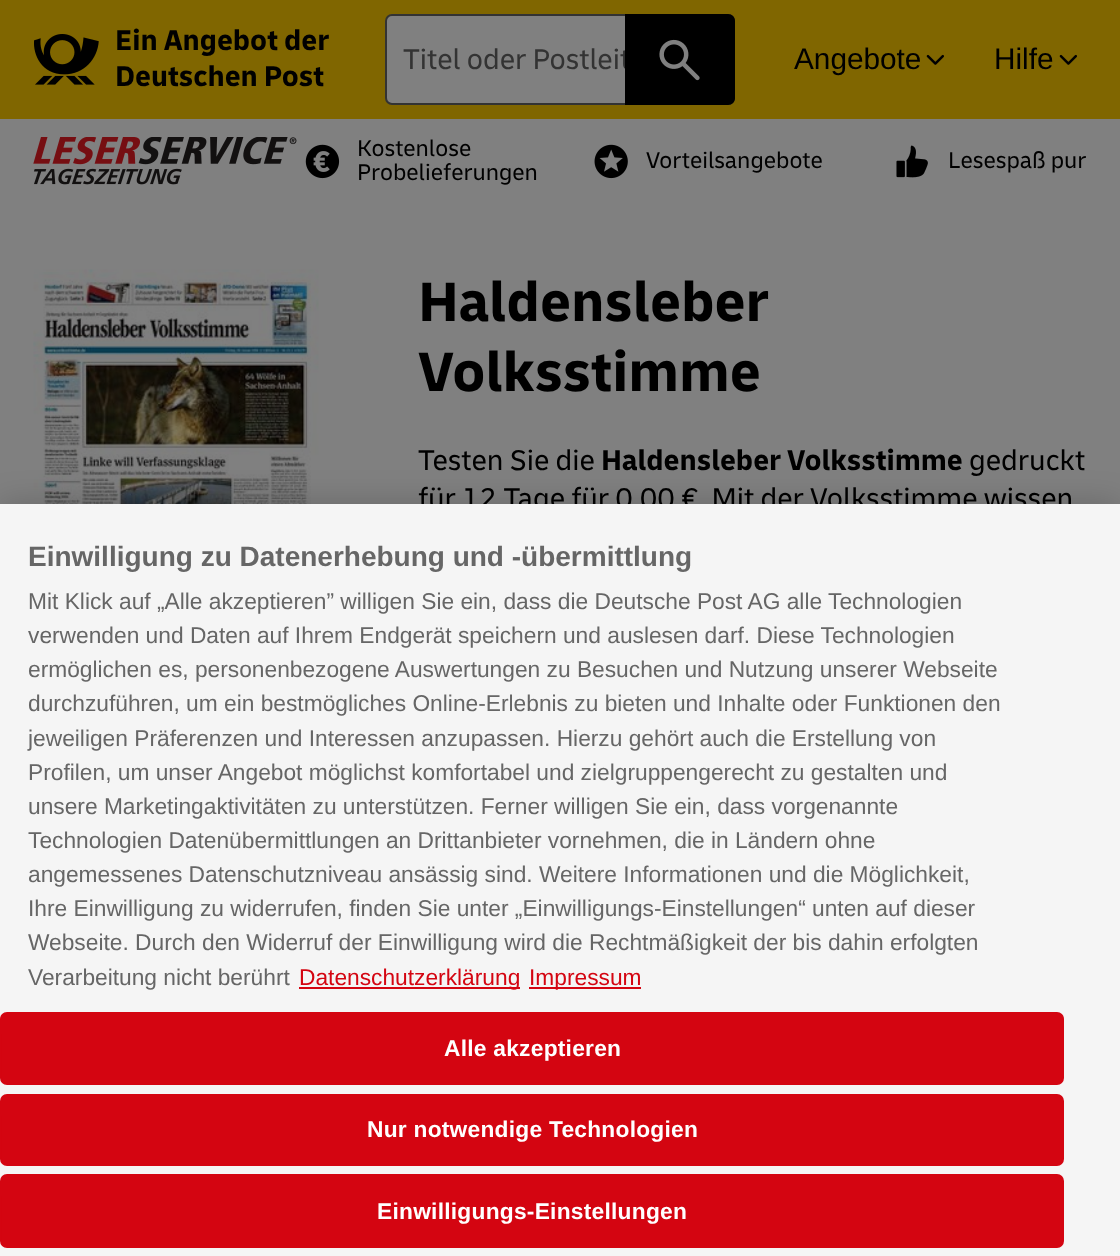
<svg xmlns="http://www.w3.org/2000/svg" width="1120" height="1256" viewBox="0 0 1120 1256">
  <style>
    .t1 { font: bold 29.75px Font; fill: #000; }
    .t2 { font: 29.75px Font; fill: #333; }
    .t3 { font: 29.75px Liberation Sans; fill: #000; }
    .t4 { font: 23.75px Font; fill: #000; }
    .t5 { font: bold 58px Font; fill: #000; }
    .t6 { font: 29.75px Font; fill: #000; }
    .t7 { font: bold 28px Liberation Sans; fill: #666; }
    .t8 { font: 22.75px Liberation Sans; fill: #666; }
    .t9 { font: 22.75px Liberation Sans; fill: #d40511; }
    .t10 { font: bold 22.75px Liberation Sans; letter-spacing: 0.25px; fill: #fff; }
  </style>
  <rect width="100%" height="100%" fill="#808080"/>
  <rect x="0" y="0" width="1120" height="119" fill="#806600"/>
  <image x="34" y="34" width="65" height="51" href="images/1.png"/>
  <text x="115" y="50" class="t1">Ein Angebot der</text>
  <text x="115" y="86" class="t1">Deutschen Post</text>
  <rect x="386" y="15" width="348" height="89" rx="6" fill="#808080" stroke="#333" stroke-width="2"/>
  <text x="403" y="69" class="t2">Titel oder Postleit</text>
  <path d="M625 14H728C732 14 735 17 735 21V98C735 102 732 105 728 105H625Z" fill="#000"/>
  <image x="659" y="39" width="41" height="42" href="images/2.png"/>
  <text x="794" y="69" class="t3">Angebote</text>
  <image x="926" y="54" width="18" height="11" href="images/3.png"/>
  <text x="994" y="69" class="t3">Hilfe</text>
  <image x="1059" y="54" width="18" height="11" href="images/3.png"/>
  <image x="33" y="137" width="264" height="48" href="images/4.png"/>
  <image x="305" y="144" width="35" height="35" href="images/5.png"/>
  <text x="357" y="156" class="t4">Kostenlose</text>
  <text x="357" y="180" class="t4">Probelieferungen</text>
  <image x="594" y="144" width="34" height="35" href="images/6.png"/>
  <text x="646" y="168" class="t4">Vorteilsangebote</text>
  <image x="896" y="145" width="32" height="33" href="images/7.png"/>
  <text x="948" y="168" class="t4">Lesespaß pur</text>
  <image x="33" y="269" width="286" height="235" href="images/8.png"/>
  <text x="418" y="321" class="t5">Haldensleber</text>
  <text x="418" y="391" class="t5">Volksstimme</text>
  <text x="418" y="470" class="t6">Testen Sie die</text>
  <text x="601" y="470" class="t1">Haldensleber Volksstimme</text>
  <text x="969" y="470" class="t6">gedruckt</text>
  <text x="418" y="508" class="t6">für 12 Tage für 0,00 €. Mit der Volksstimme wissen</text>
  <rect x="0" y="504" width="1120" height="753" fill="#00000033" filter="blur(16px)"/>
  <rect x="0" y="504" width="1120" height="752" fill="#f5f5f5"/>
  <text x="28" y="566" class="t7">Einwilligung zu Datenerhebung und -übermittlung</text>
  <text x="28" y="609" class="t8">Mit Klick auf „Alle akzeptieren” willigen Sie ein, dass die Deutsche Post AG alle Technologien</text>
  <text x="28" y="643" class="t8">verwenden und Daten auf Ihrem Endgerät speichern und auslesen darf. Diese Technologien</text>
  <text x="28" y="677" class="t8">ermöglichen es, personenbezogene Auswertungen zu Besuchen und Nutzung unserer Webseite</text>
  <text x="28" y="711" class="t8">durchzuführen, um ein bestmögliches Online-Erlebnis zu bieten und Inhalte oder Funktionen den</text>
  <text x="28" y="746" class="t8">jeweiligen Präferenzen und Interessen anzupassen. Hierzu gehört auch die Erstellung von</text>
  <text x="28" y="780" class="t8">Profilen, um unser Angebot möglichst komfortabel und zielgruppengerecht zu gestalten und</text>
  <text x="28" y="814" class="t8">unsere Marketingaktivitäten zu unterstützen. Ferner willigen Sie ein, dass vorgenannte</text>
  <text x="28" y="848" class="t8">Technologien Datenübermittlungen an Drittanbieter vornehmen, die in Ländern ohne</text>
  <text x="28" y="882" class="t8">angemessenes Datenschutzniveau ansässig sind. Weitere Informationen und die Möglichkeit,</text>
  <text x="28" y="916" class="t8">Ihre Einwilligung zu widerrufen, finden Sie unter „Einwilligungs-Einstellungen“ unten auf dieser</text>
  <text x="28" y="950" class="t8">Webseite. Durch den Widerruf der Einwilligung wird die Rechtmäßigkeit der bis dahin erfolgten</text>
  <text x="28" y="985" class="t8">Verarbeitung nicht berührt</text>
  <rect x="299" y="987" width="221" height="2" fill="#d40511"/>
  <text x="299" y="985" class="t9">Datenschutzerklärung</text>
  <rect x="529" y="987" width="112" height="2" fill="#d40511"/>
  <text x="529" y="985" class="t9">Impressum</text>
  <rect x="1" y="1013" width="1062" height="71" rx="6" fill="#d40511" stroke="#d40511" stroke-width="2"/>
  <text x="444" y="1056" class="t10">Alle akzeptieren</text>
  <rect x="1" y="1095" width="1062" height="70" rx="6" fill="#d40511" stroke="#d40511" stroke-width="2"/>
  <text x="367" y="1137" class="t10">Nur notwendige Technologien</text>
  <rect x="1" y="1175" width="1062" height="72" rx="6" fill="#d40511" stroke="#d40511" stroke-width="2"/>
  <text x="377" y="1219" class="t10">Einwilligungs-Einstellungen</text>
</svg>
